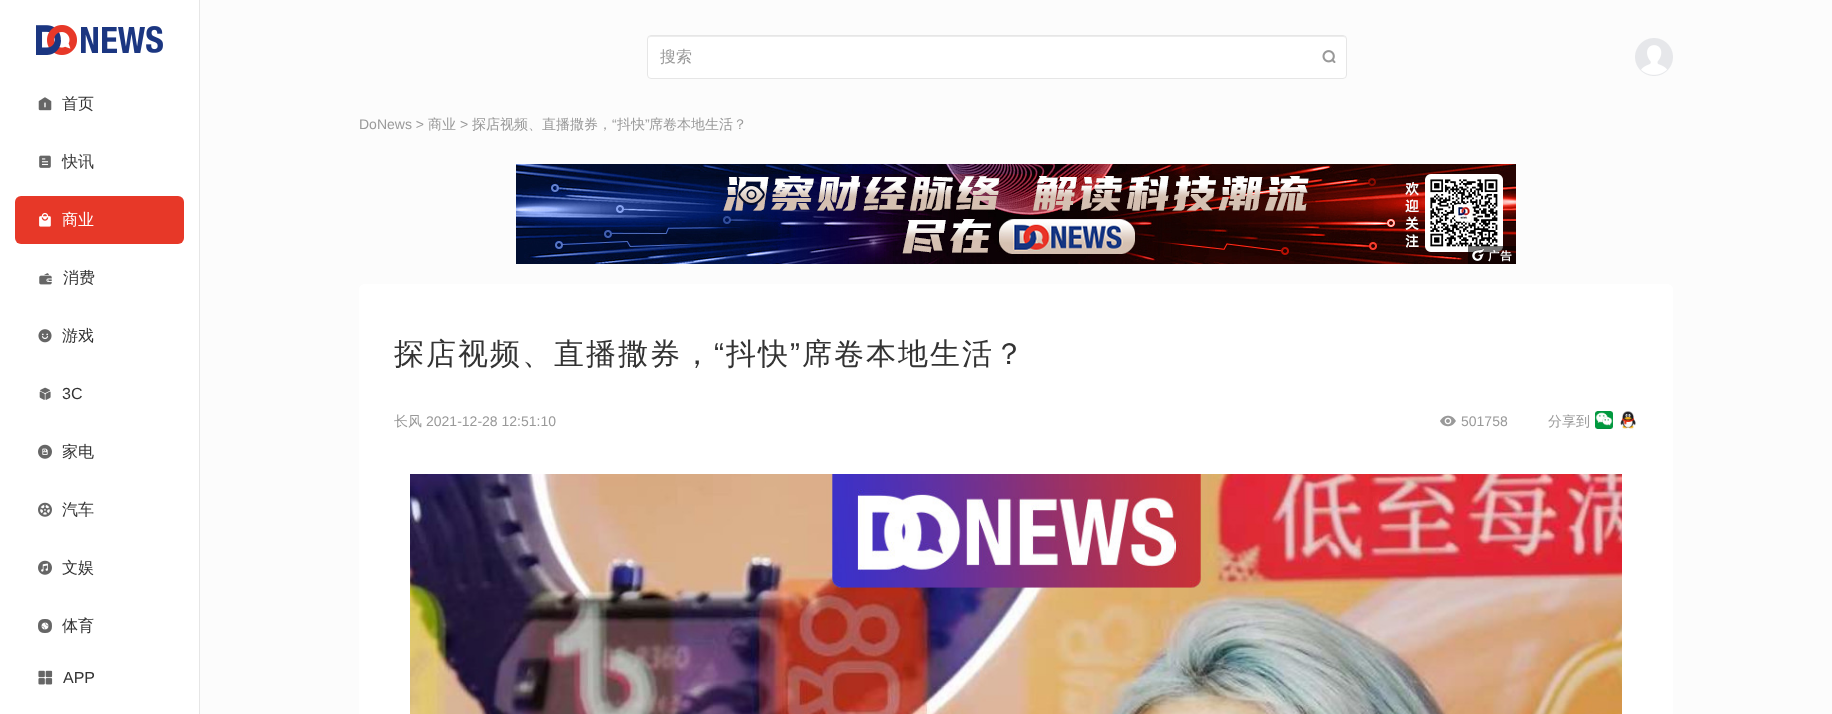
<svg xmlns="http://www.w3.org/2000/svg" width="1832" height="714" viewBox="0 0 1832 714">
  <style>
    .t1 { font: 500 16px WenQuanYi Zen Hei; fill: #333; }
    .t2 { font: 500 16px WenQuanYi Zen Hei; fill: #fff; }
    .t3 { font: 16px Liberation Sans; fill: #333; }
    .t4 { font: 500 16px WenQuanYi Zen Hei; fill: #999; }
    .t5 { font: 14px Liberation Sans; fill: #999; }
    .t6 { font: 500 14px WenQuanYi Zen Hei; fill: #999; }
    .t7 { font: 500 30px WenQuanYi Zen Hei; letter-spacing: 2px; fill: #333; }
    .t8 { font: 30px Liberation Sans; letter-spacing: 2px; fill: #333; }
  </style>
  <rect width="100%" height="100%" fill="#fcfcfc"/>
  <rect x="0" y="0" width="199" height="714" fill="#fff"/>
  <rect x="199" y="0" width="1" height="714" fill="#e6e6e6"/>
  <image x="36" y="25" width="127" height="30" href="images/1.png"/>
  <image x="38" y="97" width="14" height="14" href="images/2.png"/>
  <text x="62" y="109" class="t1">首页</text>
  <image x="39" y="155" width="12" height="13" href="images/3.png"/>
  <text x="62" y="167" class="t1">快讯</text>
  <rect x="15" y="196" width="169" height="48" rx="6" fill="#e73828"/>
  <image x="39" y="212" width="12" height="15" href="images/4.png"/>
  <text x="62" y="225" class="t2">商业</text>
  <image x="39" y="273" width="13" height="12" href="images/5.png"/>
  <text x="63" y="283" class="t1">消费</text>
  <image x="38" y="329" width="14" height="14" href="images/6.png"/>
  <text x="62" y="341" class="t1">游戏</text>
  <image x="39" y="387" width="12" height="13" href="images/7.png"/>
  <text x="62" y="399" class="t3">3C</text>
  <image x="38" y="444" width="14" height="15" href="images/8.png"/>
  <text x="62" y="457" class="t1">家电</text>
  <image x="38" y="502" width="14" height="15" href="images/9.png"/>
  <text x="62" y="515" class="t1">汽车</text>
  <image x="38" y="560" width="14" height="15" href="images/10.png"/>
  <text x="62" y="573" class="t1">文娱</text>
  <image x="38" y="619" width="14" height="14" href="images/11.png"/>
  <text x="62" y="631" class="t1">体育</text>
  <image x="38" y="670" width="15" height="15" href="images/12.png"/>
  <text x="63" y="683" class="t3">APP</text>
  <rect x="647" y="35" width="700" height="44" rx="4" fill="#fff"/>
  <path d="M651 37H1343C1345 37 1346 38 1346 40C1346 38 1345 36 1343 36H651C649 36 648 38 648 40C648 38 649 37 651 37Z" fill="#ececec"/>
  <rect x="647.5" y="35.5" width="699" height="43" rx="3.5" fill="none" stroke="#e6e6e6"/>
  <text x="660" y="62" class="t4">搜索</text>
  <image x="1322" y="50" width="14" height="13" href="images/13.png"/>
  <image x="1635" y="38" width="38" height="38" href="images/14.png"/>
  <text x="359" y="129" class="t5">DoNews &gt;</text>
  <text x="428" y="129" class="t6">商业</text>
  <text x="460" y="129" class="t5">&gt;</text>
  <text x="472" y="129" class="t6">探店视频、直播撒券，</text>
  <text x="612" y="129" class="t5">“</text>
  <text x="617" y="129" class="t6">抖快</text>
  <text x="645" y="129" class="t5">”</text>
  <text x="649" y="129" class="t6">席卷本地生活？</text>
  <image x="516" y="164" width="1000" height="100" href="images/15.png"/>
  <path d="M365 284H1667C1670.5 284 1673 286.5 1673 290V714H359V290C359 286.5 361.5 284 365 284Z" fill="#fff"/>
  <text x="394" y="364" class="t7">探店视频、直播撒券，</text>
  <text x="714" y="364" class="t8">“</text>
  <text x="726" y="364" class="t7">抖快</text>
  <text x="790" y="364" class="t8">”</text>
  <text x="802" y="364" class="t7">席卷本地生活？</text>
  <text x="394" y="426" class="t6">长风</text>
  <text x="426" y="426" class="t5">2021-12-28 12:51:10</text>
  <image x="1440" y="415" width="16" height="12" href="images/16.png"/>
  <text x="1461" y="426" class="t5">501758</text>
  <text x="1548" y="426" class="t6">分享到</text>
  <image x="1595" y="411" width="18" height="18" href="images/17.png"/>
  <image x="1620" y="411" width="16" height="19" href="images/18.png"/>
  <image x="410" y="474" width="1212" height="240" href="images/19.png"/>
</svg>
